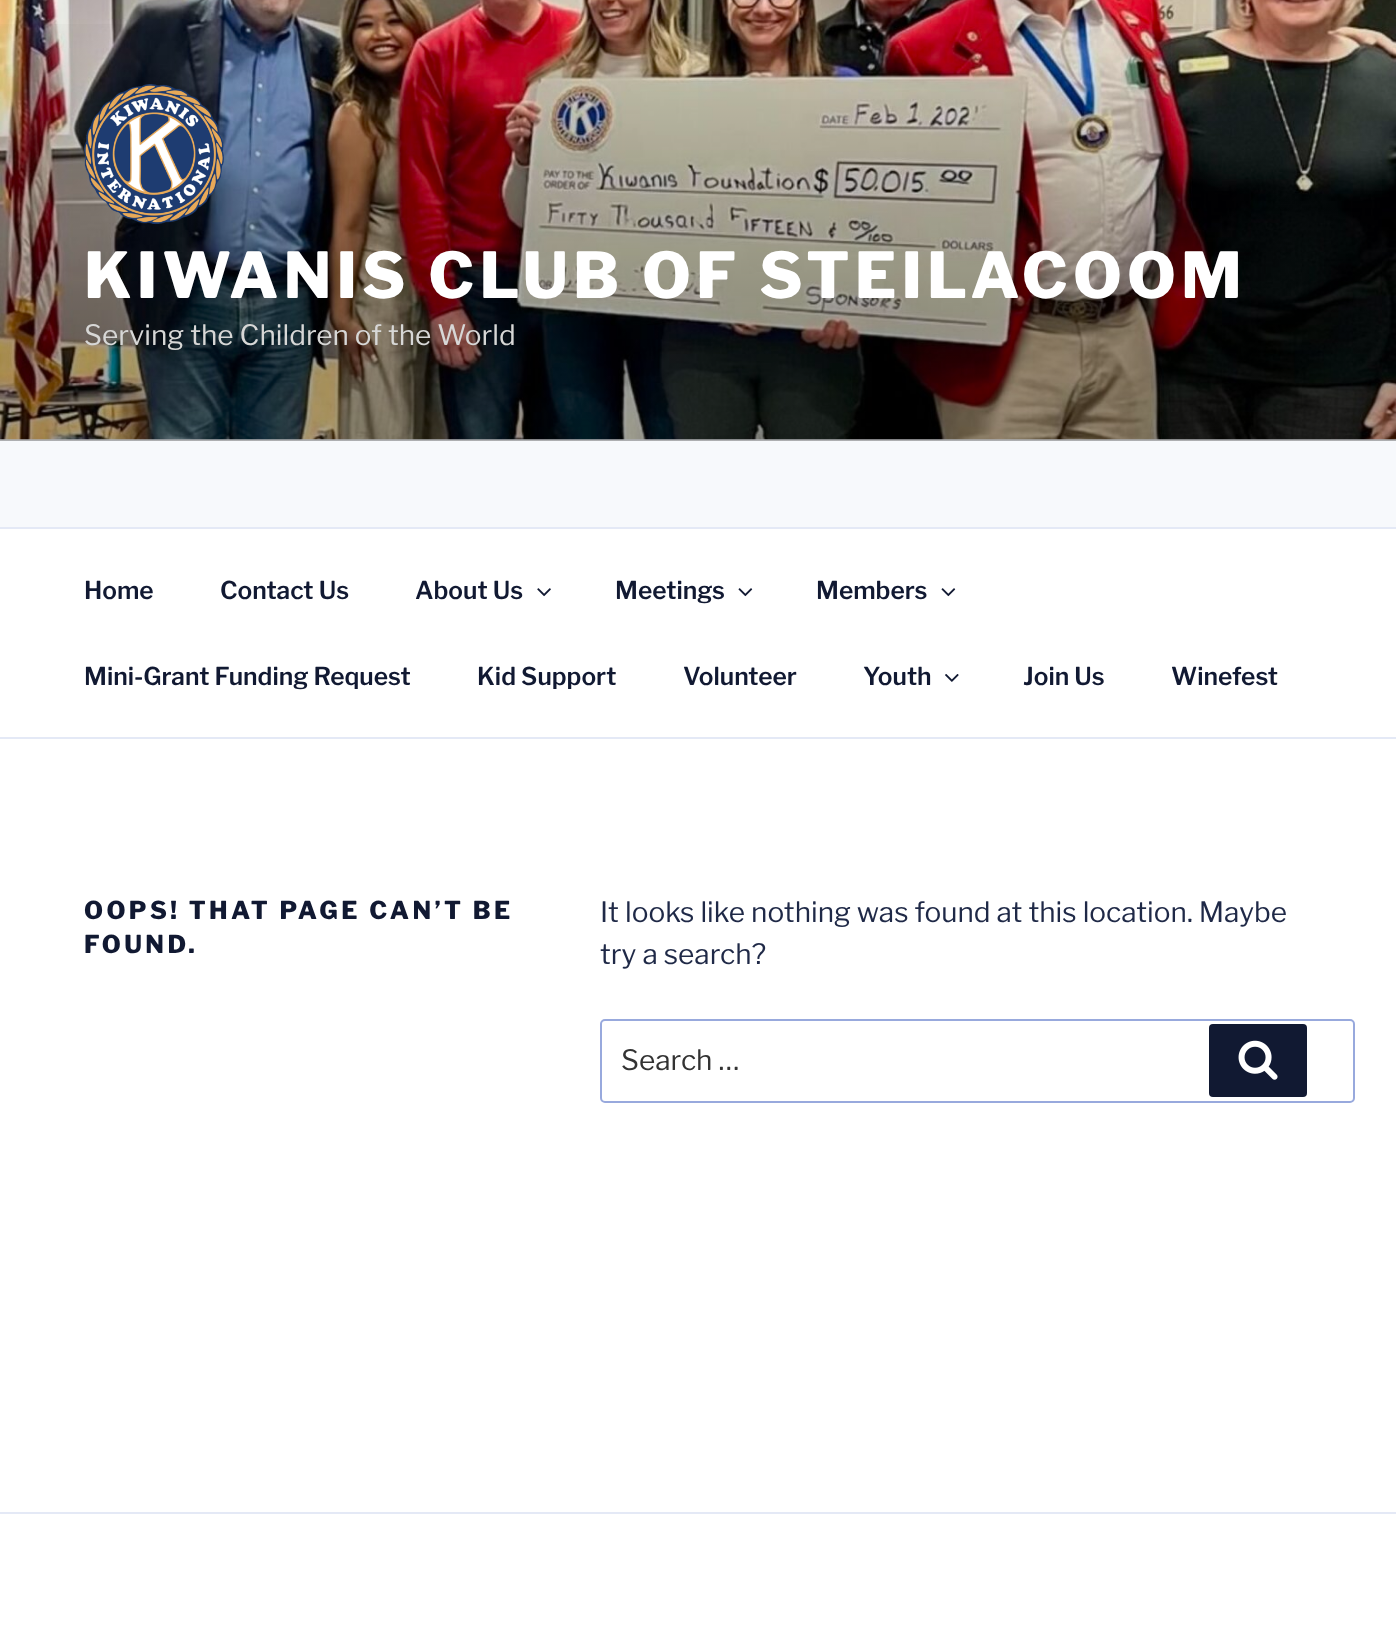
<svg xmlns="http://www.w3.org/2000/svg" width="1396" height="1629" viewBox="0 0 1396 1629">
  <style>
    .t1 { font: 100 63px Libre Franklin; letter-spacing: 5.05px; fill: #fff; }
    .t2 { font: 100 28px 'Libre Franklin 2'; fill: #d7d7d6; }
    .t3 { font: 100 24.5px 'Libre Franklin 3'; fill: #111932; }
    .t4 { font: 100 24.5px Libre Franklin; letter-spacing: 3.4px; fill: #111932; }
    .t5 { font: 100 28px 'Libre Franklin 2'; fill: #1f2947; }
    .t6 { font: 100 28px 'Libre Franklin 2'; fill: #333; }
  </style>
  <defs>
    <linearGradient id="g1" gradientUnits="userSpaceOnUse" x1="698" y1="0" x2="698" y2="441"><stop offset="0" stop-color="#000" stop-opacity="0"/><stop offset="0.75" stop-color="#000" stop-opacity="0.3"/><stop offset="1" stop-color="#000" stop-opacity="0.3"/></linearGradient>
  </defs>
  <rect width="100%" height="100%" fill="#fff"/>
  <rect x="0" y="439" width="1396" height="88" fill="#f7f9fc"/>
  <image x="0" y="0" width="1396" height="440" href="images/1.png"/>
  <rect x="0" y="24" width="1396" height="417" fill="url(#g1)"/>
  <image x="84" y="84" width="140" height="140" href="images/2.png"/>
  <text x="84" y="298" class="t1">KIWANIS CLUB OF STEILACOOM</text>
  <text x="84" y="345" class="t2">Serving the Children of the World</text>
  <rect x="0" y="527" width="1396" height="2" fill="#e4e9f6"/>
  <rect x="0" y="737" width="1396" height="2" fill="#e4e9f6"/>
  <text x="84" y="599" class="t3">Home</text>
  <text x="220" y="599" class="t3">Contact Us</text>
  <text x="415" y="599" class="t3">About Us</text>
  <image x="537" y="588" width="14" height="9" href="images/3.png"/>
  <text x="615" y="599" class="t3">Meetings</text>
  <image x="738" y="588" width="15" height="9" href="images/4.png"/>
  <text x="816" y="599" class="t3">Members</text>
  <image x="941" y="588" width="15" height="9" href="images/4.png"/>
  <text x="84" y="685" class="t3">Mini-Grant Funding Request</text>
  <text x="477" y="685" class="t3">Kid Support</text>
  <text x="683" y="685" class="t3">Volunteer</text>
  <text x="863" y="685" class="t3">Youth</text>
  <image x="945" y="674" width="14" height="8" href="images/5.png"/>
  <text x="1023" y="685" class="t3">Join Us</text>
  <text x="1171" y="685" class="t3">Winefest</text>
  <text x="84" y="919" class="t4">OOPS! THAT PAGE CAN’T BE</text>
  <text x="84" y="953" class="t4">FOUND.</text>
  <text x="600" y="922" class="t5">It looks like nothing was found at this location. Maybe</text>
  <text x="600" y="964" class="t5">try a search?</text>
  <rect x="601" y="1020" width="753" height="82" rx="4" fill="none" stroke="#98a9dd" stroke-width="2"/>
  <text x="621" y="1070" class="t6">Search …</text>
  <rect x="1209" y="1024" width="98" height="73" rx="4" fill="#111932"/>
  <image x="1238" y="1040" width="40" height="40" href="images/6.png"/>
  <rect x="0" y="1512" width="1396" height="2" fill="#e4e9f6"/>
</svg>
